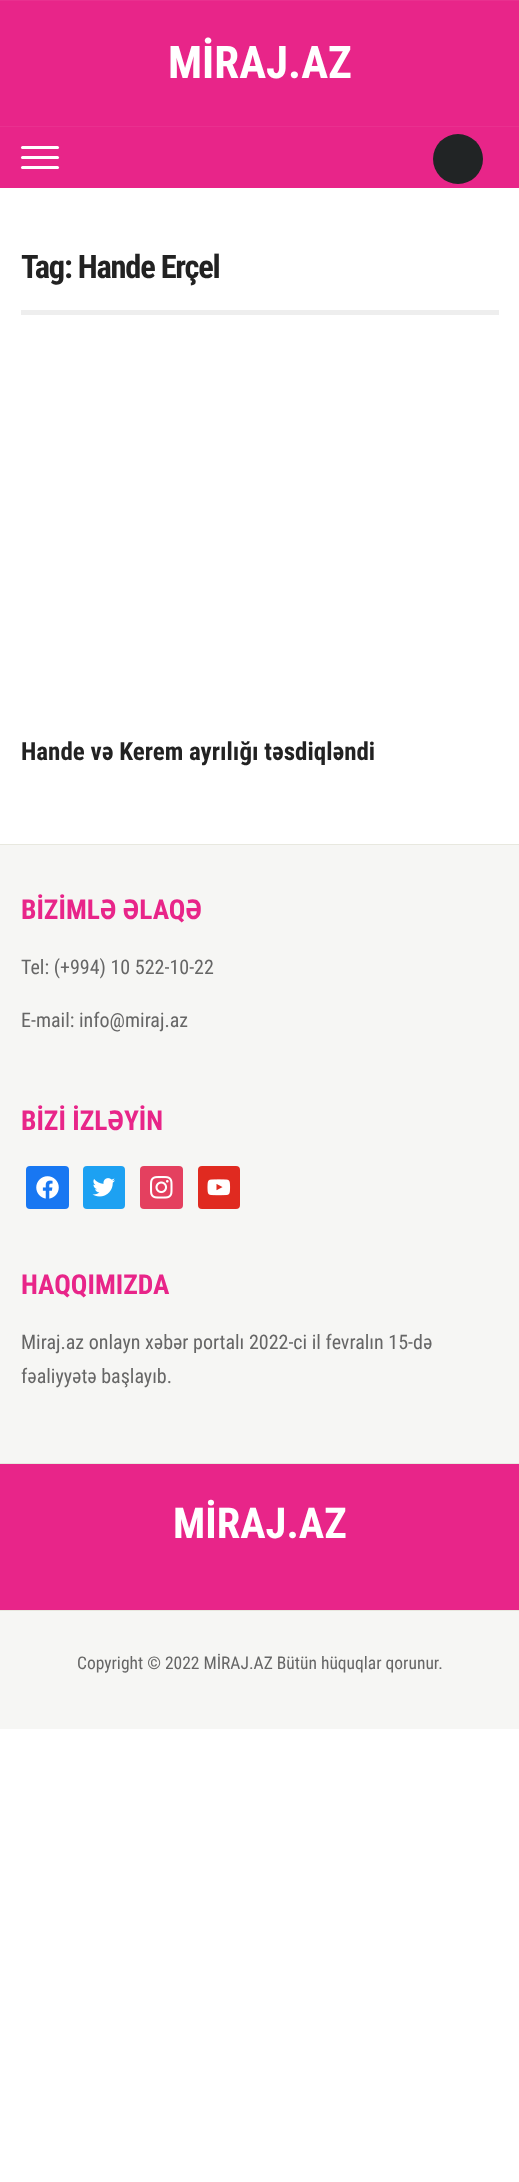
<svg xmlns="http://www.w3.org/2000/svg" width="519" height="2182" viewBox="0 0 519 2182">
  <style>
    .t1 { font: bold 45px Roboto Condensed; fill: #fff; }
    .t2 { font: bold 32.5px Roboto Condensed; letter-spacing: -1.25px; fill: #222; }
    .t3 { font: bold 25px Roboto Condensed; fill: #222; }
    .t4 { font: bold 27.5px Roboto Condensed; fill: #e82589; }
    .t5 { font: 20px Roboto Condensed; fill: #666; }
    .t6 { font: bold 42.5px Roboto Condensed; fill: #fff; }
    .t7 { font: 17.5px Roboto Condensed; fill: #666; }
  </style>
  <rect width="100%" height="100%" fill="#fff"/>
  <rect x="0" y="1" width="519" height="187" fill="#e82589"/>
  <rect x="0" y="0" width="519" height="1" fill="#e9308f"/>
  <text x="168" y="78" class="t1">MİRAJ.AZ</text>
  <rect x="0" y="126" width="519" height="1" fill="#e9308f"/>
  <rect x="21" y="146" width="38" height="3" rx="1.5" fill="#fff"/>
  <rect x="21" y="156" width="38" height="3" rx="1.5" fill="#fff"/>
  <rect x="21" y="166" width="38" height="3" rx="1.5" fill="#fff"/>
  <circle cx="458" cy="159" r="25" fill="#212425"/>
  <rect x="21" y="310" width="478" height="5" fill="#eee"/>
  <text x="21" y="278" class="t2">Tag: Hande Erçel</text>
  <text x="21" y="760" class="t3">Hande və Kerem ayrılığı təsdiqləndi</text>
  <rect x="0" y="845" width="519" height="884" fill="#f6f6f4"/>
  <rect x="0" y="844" width="519" height="1" fill="#e8e8df"/>
  <rect x="0" y="1463" width="519" height="1" fill="#e8e8df"/>
  <text x="21" y="919" class="t4">BİZİMLƏ ƏLAQƏ</text>
  <text x="21" y="974" class="t5">Tel: (+994) 10 522-10-22</text>
  <text x="21" y="1027" class="t5">E-mail: info@miraj.az</text>
  <text x="21" y="1130" class="t4">BİZİ İZLƏYİN</text>
  <rect x="26" y="1166" width="43" height="43" rx="4" fill="#1877f2"/>
  <image x="36" y="1176" width="23" height="23" href="images/1.png"/>
  <rect x="83" y="1166" width="42" height="43" rx="4" fill="#1da1f2"/>
  <image x="92" y="1178" width="23" height="19" href="images/2.png"/>
  <rect x="140" y="1166" width="43" height="43" rx="4" fill="#e4405f"/>
  <image x="150" y="1176" width="23" height="23" href="images/3.png"/>
  <rect x="198" y="1166" width="42" height="43" rx="4" fill="#e02a20"/>
  <image x="207" y="1179" width="24" height="17" href="images/4.png"/>
  <text x="21" y="1294" class="t4">HAQQIMIZDA</text>
  <text x="21" y="1349" class="t5">Miraj.az onlayn xəbər portalı 2022-ci il fevralın 15-də</text>
  <text x="21" y="1383" class="t5">fəaliyyətə başlayıb.</text>
  <rect x="0" y="1464" width="519" height="146" fill="#e82589"/>
  <rect x="0" y="1610" width="519" height="1" fill="#e8e8df"/>
  <text x="173" y="1538" class="t6">MİRAJ.AZ</text>
  <text x="77" y="1669" class="t7">Copyright © 2022 MİRAJ.AZ Bütün hüquqlar qorunur.</text>
</svg>
